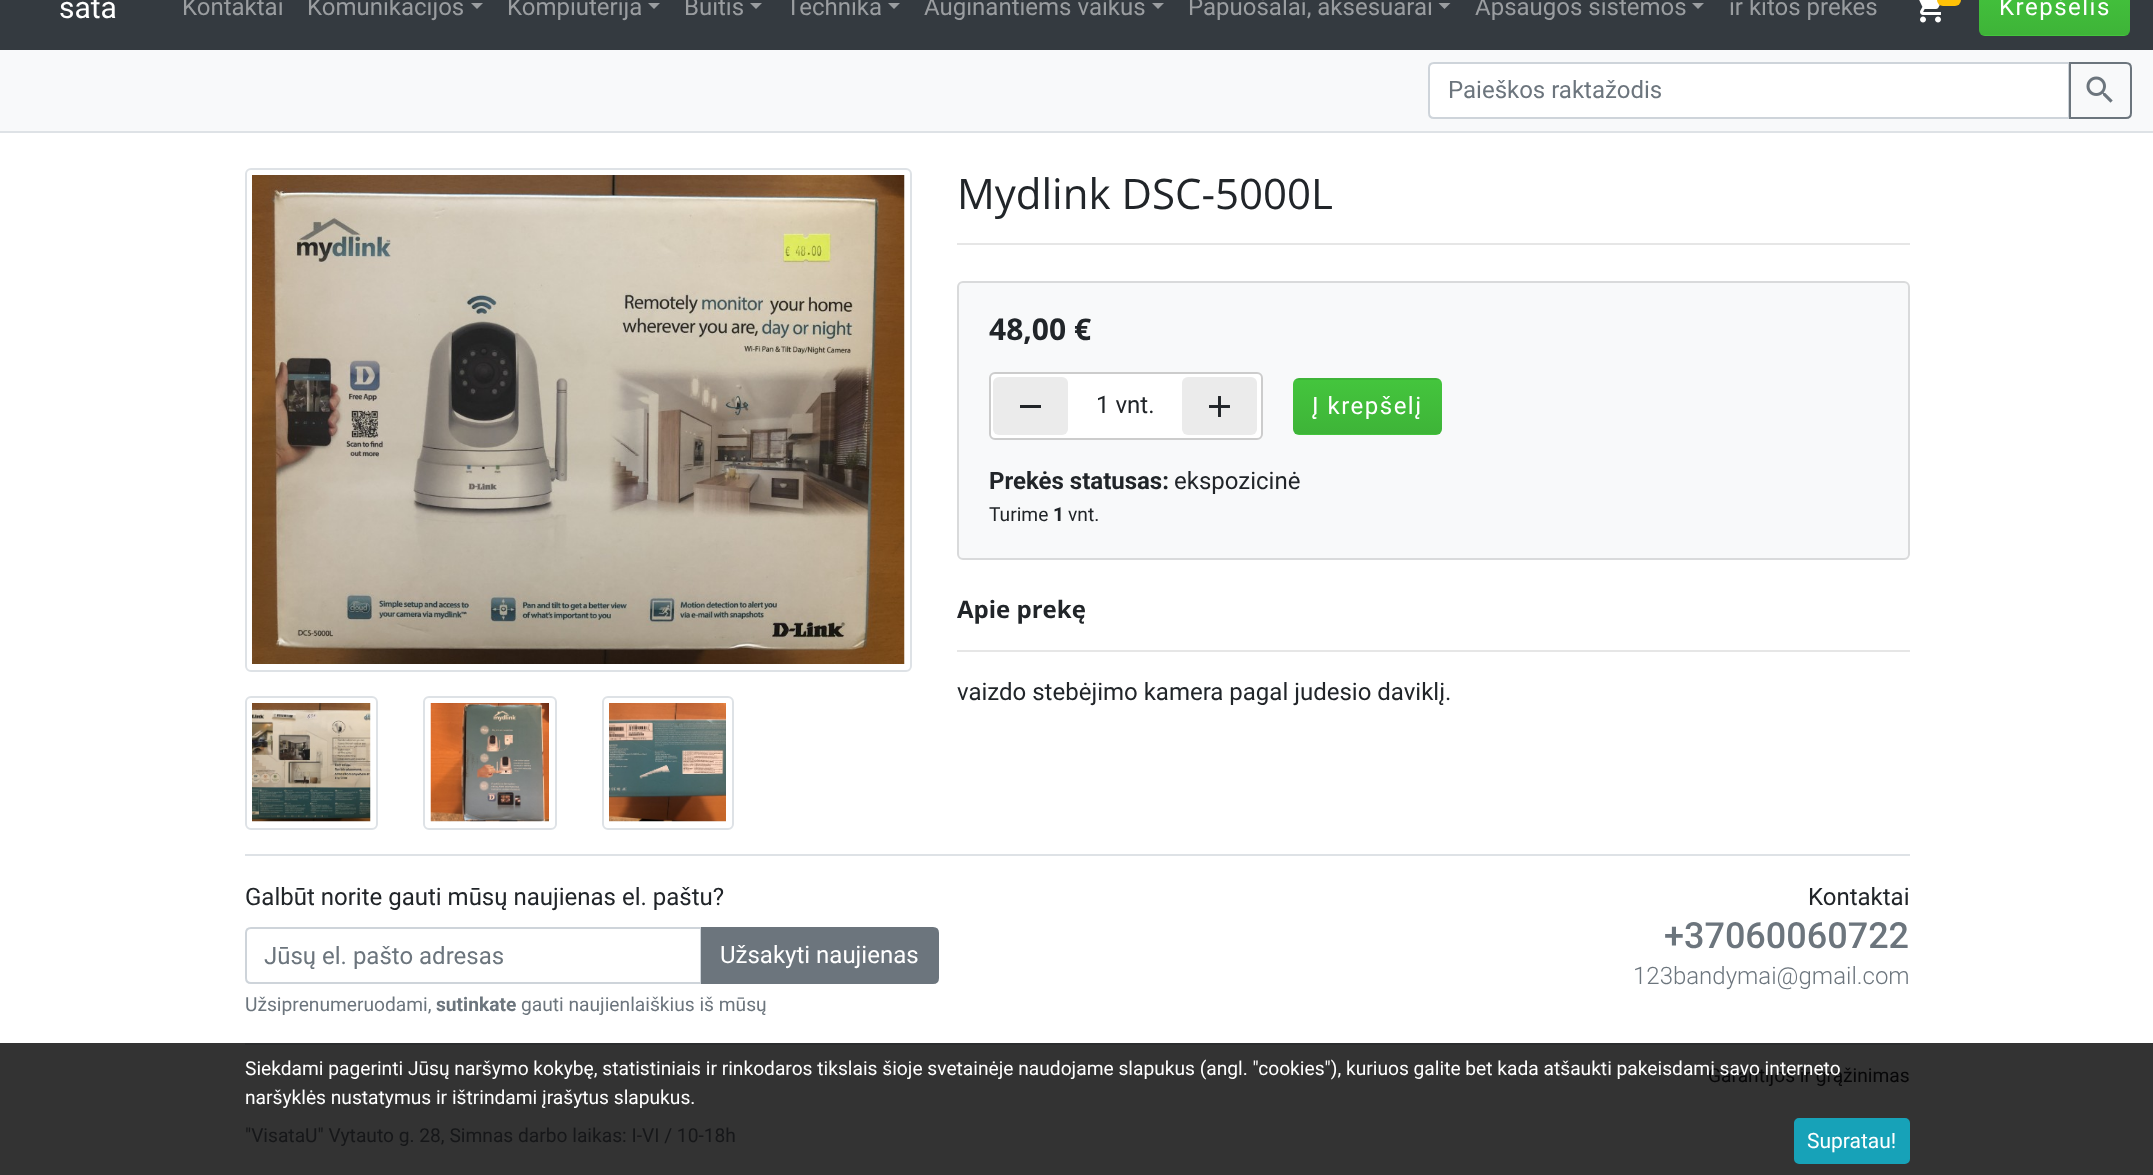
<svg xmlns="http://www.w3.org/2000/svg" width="2153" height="1175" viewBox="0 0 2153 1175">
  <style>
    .t1 { font: 30px Roboto; fill: #fff; }
    .t2 { font: 24px Roboto; fill: #9a9da0; }
    .t3 { font: 24px Roboto; letter-spacing: 1.5px; fill: #fff; }
    .t4 { font: 24px Roboto; fill: #6c757d; }
    .t5 { font: 42px Open Sans; fill: #212529; }
    .t6 { font: bold 30px Open Sans; fill: #212529; }
    .t7 { font: 24px Roboto; fill: #212529; }
    .t8 { font: bold 24px Roboto; fill: #212529; }
    .t9 { font: 19.2px Roboto; fill: #212529; }
    .t10 { font: bold 19.2px Roboto; fill: #212529; }
    .t11 { font: bold 24px Open Sans; fill: #212529; }
    .t12 { font: 24px Roboto; fill: #fff; }
    .t13 { font: 19.2px Roboto; fill: #6c757d; }
    .t14 { font: bold 19.2px Roboto; fill: #6c757d; }
    .t15 { font: 500 36px Roboto; fill: #6c757d; }
    .t16 { font: 300 24px Roboto; fill: #6c757d; }
    .t17 { font: 19.2px Roboto; fill: #070708; }
    .t18 { font: 19.2px Roboto; fill: #161719; }
    .t19 { font: 19.2px Roboto; fill: #fff; }
    .t20 { font: 21px Roboto; fill: #fff; }
  </style>
  <defs>
    <clipPath id="clip1"><rect x="1979" y="-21" width="151" height="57" rx="6"/></clipPath>
    <linearGradient id="g1" gradientUnits="userSpaceOnUse" x1="2054" y1="-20" x2="2054" y2="35"><stop offset="0" stop-color="#44c53d"/><stop offset="1" stop-color="#3eb438"/></linearGradient>
    <linearGradient id="g2" gradientUnits="userSpaceOnUse" x1="2054" y1="34" x2="2054" y2="89"><stop offset="0" stop-color="#44c53d"/><stop offset="1" stop-color="#3eb438"/></linearGradient>
    <clipPath id="clip2"><rect x="1293" y="378" width="149" height="57" rx="6"/></clipPath>
    <linearGradient id="g3" gradientUnits="userSpaceOnUse" x1="1367" y1="326" x2="1367" y2="380"><stop offset="0" stop-color="#44c53d"/><stop offset="1" stop-color="#3eb438"/></linearGradient>
    <linearGradient id="g4" gradientUnits="userSpaceOnUse" x1="1367" y1="380" x2="1367" y2="434"><stop offset="0" stop-color="#44c53d"/><stop offset="1" stop-color="#3eb438"/></linearGradient>
    <linearGradient id="g5" gradientUnits="userSpaceOnUse" x1="1367" y1="434" x2="1367" y2="488"><stop offset="0" stop-color="#44c53d"/><stop offset="1" stop-color="#3eb438"/></linearGradient>
  </defs>
  <rect width="100%" height="100%" fill="#fff"/>
  <rect x="0" y="1043" width="2153" height="132" fill="#333"/>
  <rect x="0" y="0" width="2153" height="50" fill="#343a40"/>
  <text x="59" y="18" class="t1">sata</text>
  <text x="182" y="15" class="t2">Kontaktai</text>
  <text x="307" y="15" class="t2">Komunikacijos</text>
  <path d="M471 3H483L477 9Z" fill="#9a9da0"/>
  <text x="507" y="15" class="t2">Kompiuterija</text>
  <path d="M648 3H660L654 9Z" fill="#9a9da0"/>
  <text x="684" y="15" class="t2">Buitis</text>
  <path d="M750 3H762L756 9Z" fill="#9a9da0"/>
  <text x="786" y="15" class="t2">Technika</text>
  <path d="M888 3H900L894 9Z" fill="#9a9da0"/>
  <text x="924" y="15" class="t2">Auginantiems vaikus</text>
  <path d="M1152 3H1164L1158 9Z" fill="#9a9da0"/>
  <text x="1188" y="15" class="t2">Papuošalai, aksesuarai</text>
  <path d="M1438.5 3H1450.5L1444.5 9Z" fill="#9a9da0"/>
  <text x="1475" y="15" class="t2">Apsaugos sistemos</text>
  <path d="M1692 3H1704L1698 9Z" fill="#9a9da0"/>
  <text x="1729" y="15" class="t2">ir kitos prekes</text>
  <image x="1919" y="0" width="22" height="23" href="images/1.png"/>
  <rect x="1937" y="-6" width="24" height="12" rx="6" fill="#ffc107"/>
  <g clip-path="url(#clip1)">
    <rect x="1979" y="0" width="151" height="35" fill="url(#g1)"/>
    <rect x="1979" y="35" width="151" height="1" fill="url(#g2)"/>
  </g>
  <text x="1999" y="15" class="t3">Krepšelis</text>
  <rect x="0" y="50" width="2153" height="81" fill="#f8f9fa"/>
  <rect x="0" y="131" width="2153" height="2" fill="#dee2e6"/>
  <path d="M1434 63H2069V118H1434C1431 118 1429 116 1429 113V68C1429 65 1431 63 1434 63Z" fill="#fff" stroke="#ced4da" stroke-width="2"/>
  <text x="1448" y="98" class="t4">Paieškos raktažodis</text>
  <path d="M2070 63H2126C2129 63 2131 65 2131 68V113C2131 116 2129 118 2126 118H2070Z" fill="none" stroke="#6c757d" stroke-width="2"/>
  <image x="2086" y="76" width="27" height="27" href="images/2.png"/>
  <rect x="246" y="169" width="665" height="502" rx="5" fill="none" stroke="#dee2e6" stroke-width="2"/>
  <image x="252" y="175" width="653" height="489" href="images/3.png"/>
  <rect x="246" y="697" width="131" height="132" rx="5" fill="none" stroke="#dee2e6" stroke-width="2"/>
  <image x="252" y="703" width="119" height="119" href="images/4.png"/>
  <rect x="424" y="697" width="132" height="132" rx="5" fill="none" stroke="#dee2e6" stroke-width="2"/>
  <image x="430" y="703" width="119" height="119" href="images/5.png"/>
  <rect x="603" y="697" width="130" height="132" rx="5" fill="none" stroke="#dee2e6" stroke-width="2"/>
  <image x="609" y="703" width="117" height="119" href="images/6.png"/>
  <text x="957" y="209" class="t5">Mydlink DSC-5000L</text>
  <rect x="957" y="243" width="953" height="2" fill="#e6e6e6"/>
  <rect x="958" y="282" width="951" height="277" rx="5" fill="#f8f9fa" stroke="#d9dadb" stroke-width="2"/>
  <text x="989" y="340" class="t6">48,00 €</text>
  <rect x="990" y="373" width="272" height="66" rx="5" fill="#fff" stroke="#ccc" stroke-width="2"/>
  <rect x="993" y="377" width="75" height="58" rx="6" fill="#ebebeb"/>
  <rect x="1020" y="405" width="21" height="3" fill="#212529"/>
  <text x="1096" y="413" class="t7">1 vnt.</text>
  <rect x="1182" y="377" width="75" height="58" rx="6" fill="#ebebeb"/>
  <image x="1209" y="396" width="21" height="21" href="images/7.png"/>
  <g clip-path="url(#clip2)">
    <rect x="1293" y="378" width="149" height="2" fill="url(#g3)"/>
    <rect x="1293" y="380" width="149" height="54" fill="url(#g4)"/>
    <rect x="1293" y="434" width="149" height="1" fill="url(#g5)"/>
  </g>
  <text x="1312" y="414" class="t3">Į krepšelį</text>
  <text x="989" y="489" class="t8">Prekės statusas:</text>
  <text x="1174" y="489" class="t7">ekspozicinė</text>
  <text x="989" y="521" class="t9">Turime</text>
  <text x="1053" y="521" class="t10">1</text>
  <text x="1068" y="521" class="t9">vnt.</text>
  <text x="957" y="618" class="t11">Apie prekę</text>
  <rect x="957" y="650" width="953" height="2" fill="#e6e6e6"/>
  <text x="957" y="700" class="t7">vaizdo stebėjimo kamera pagal judesio daviklį.</text>
  <rect x="245" y="854" width="1665" height="2" fill="#dee2e6"/>
  <text x="245" y="905" class="t7">Galbūt norite gauti mūsų naujienas el. paštu?</text>
  <path d="M251 928H701V983H251C248 983 246 981 246 978V933C246 930 248 928 251 928Z" fill="none" stroke="#ced4da" stroke-width="2"/>
  <text x="264" y="964" class="t4">Jūsų el. pašto adresas</text>
  <path d="M702 928H933C936 928 938 930 938 933V978C938 981 936 983 933 983H702Z" fill="#6c757d" stroke="#6c757d" stroke-width="2"/>
  <text x="720" y="963" class="t12">Užsakyti naujienas</text>
  <text x="245" y="1011" class="t13">Užsiprenumeruodami,</text>
  <text x="436" y="1011" class="t14">sutinkate</text>
  <text x="521" y="1011" class="t13">gauti naujienlaiškius iš mūsų</text>
  <text x="1808" y="905" class="t7">Kontaktai</text>
  <text x="1664" y="948" class="t15">+37060060722</text>
  <text x="1633" y="984" class="t16">123bandymai@gmail.com</text>
  <rect x="245" y="1043" width="1665" height="2" fill="#2c2d2e"/>
  <text x="1708" y="1082" class="t17">Garantijos ir grąžinimas</text>
  <text x="245" y="1142" class="t18">"VisataU" Vytauto g. 28, Simnas darbo laikas: I-VI / 10-18h</text>
  <text x="245" y="1075" class="t19">Siekdami pagerinti Jūsų naršymo kokybę, statistiniais ir rinkodaros tikslais šioje svetainėje naudojame slapukus (angl. "cookies"), kuriuos galite bet kada atšaukti pakeisdami savo interneto</text>
  <text x="245" y="1104" class="t19">naršyklės nustatymus ir ištrindami įrašytus slapukus.</text>
  <rect x="1795" y="1119" width="114" height="44" rx="4" fill="#17a2b8" stroke="#17a2b8" stroke-width="2"/>
  <text x="1807" y="1148" class="t20">Supratau!</text>
</svg>
